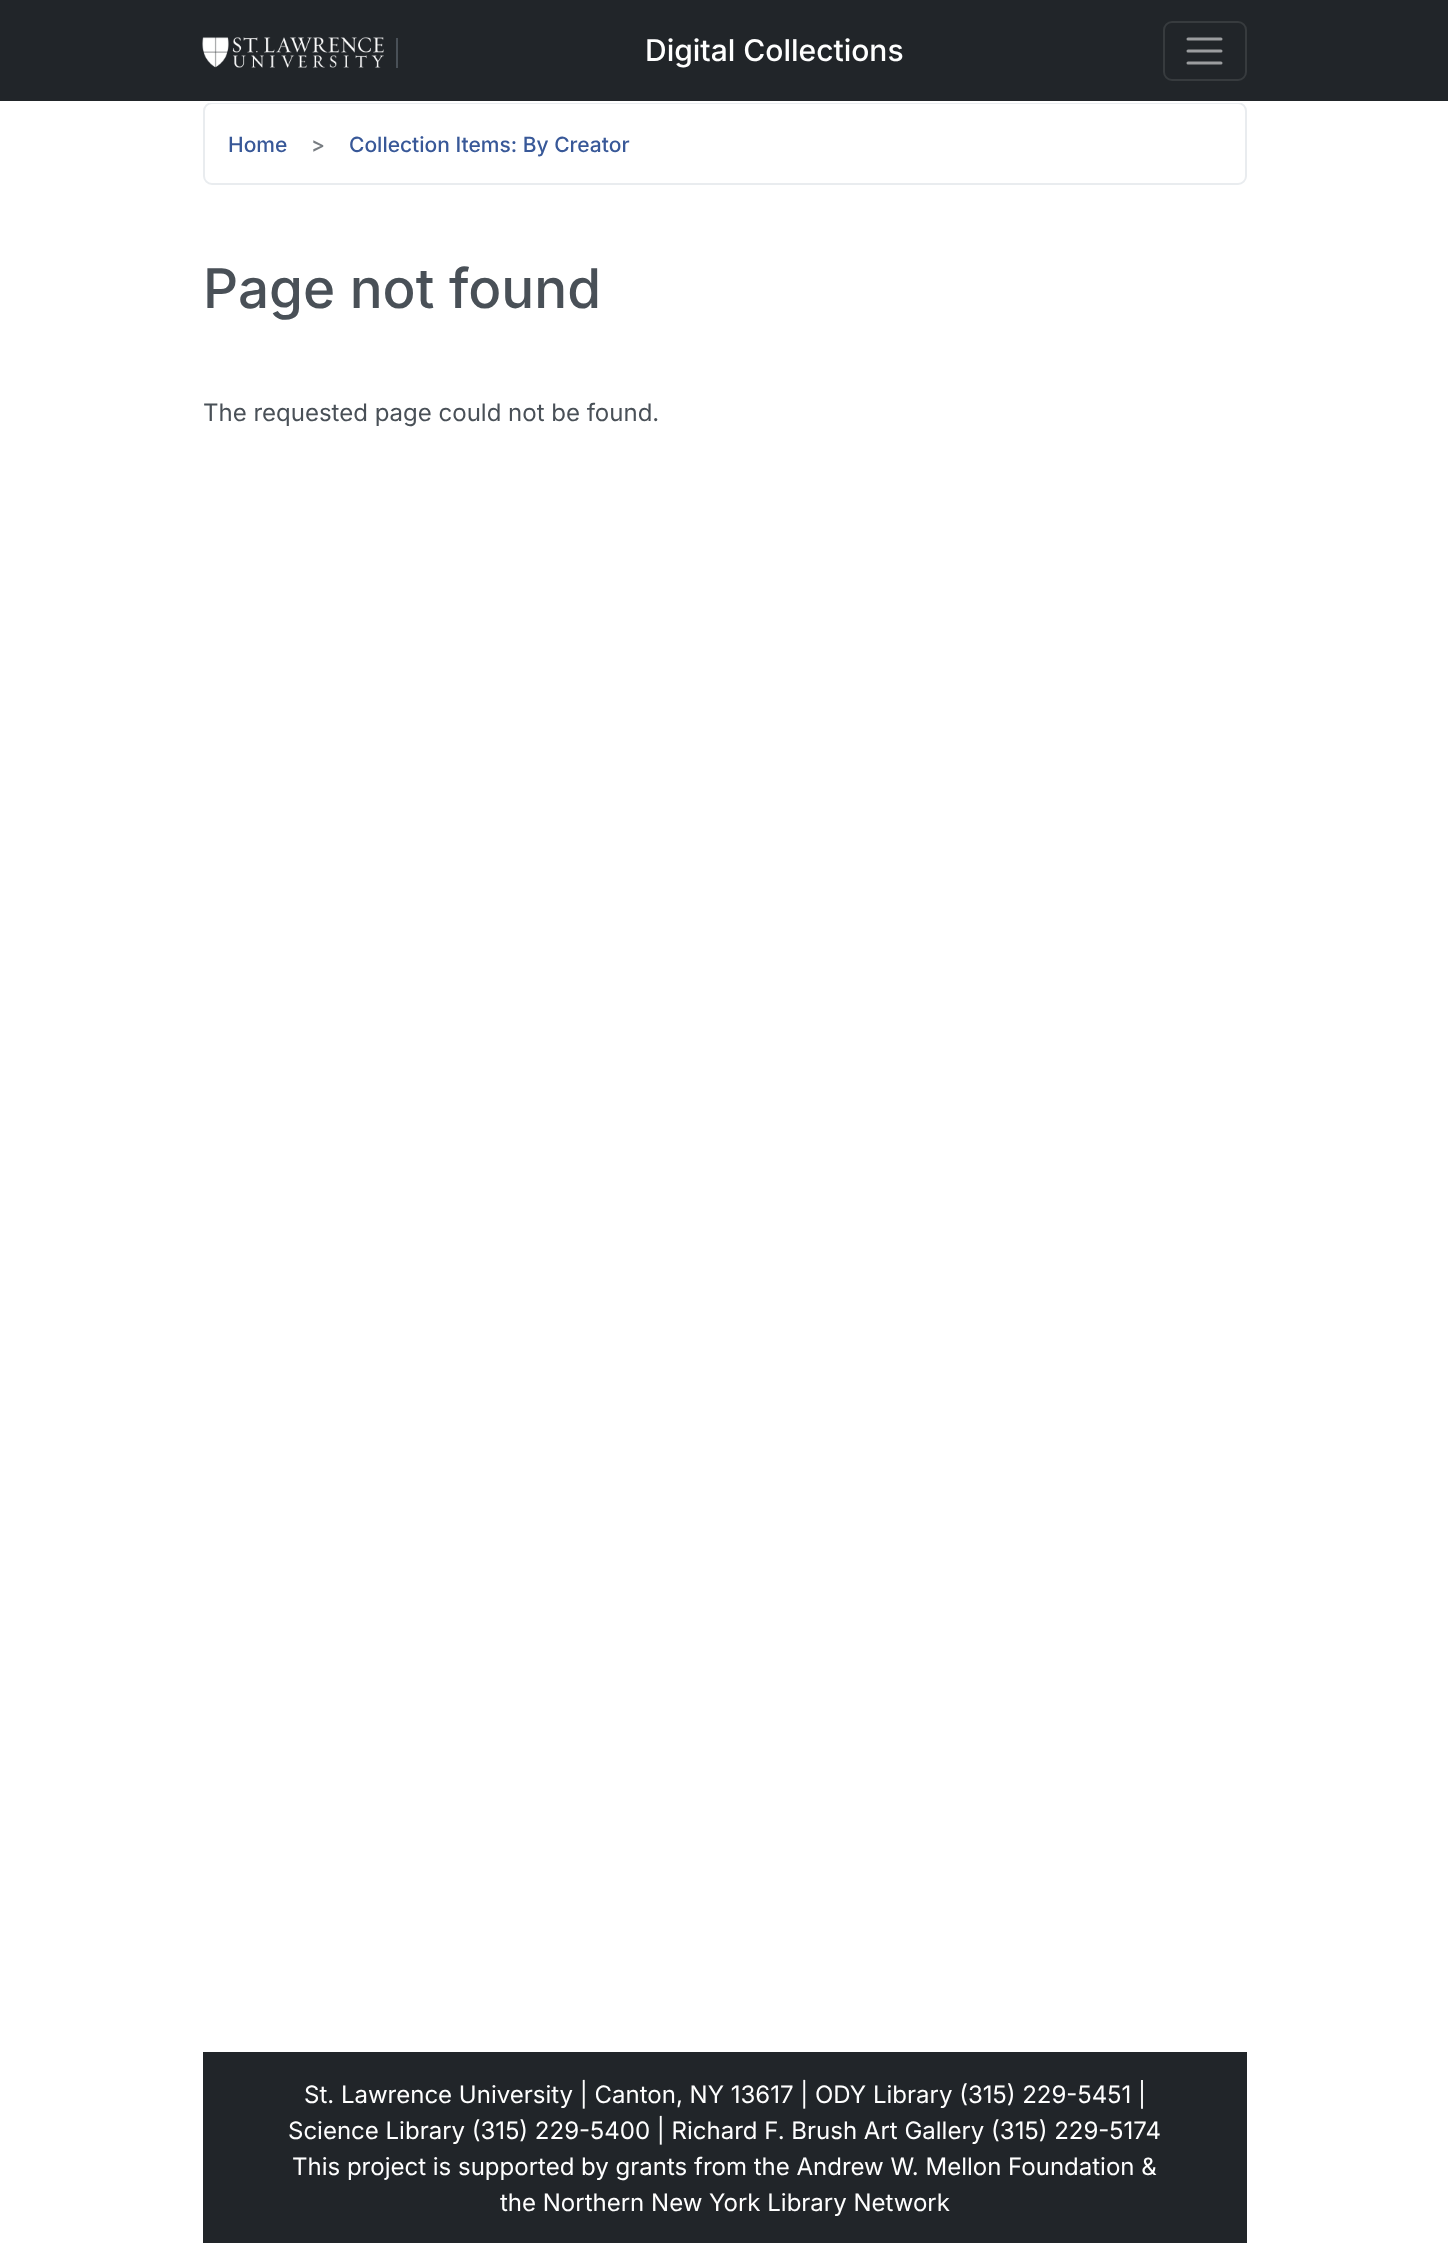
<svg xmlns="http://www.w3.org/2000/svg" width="1448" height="2243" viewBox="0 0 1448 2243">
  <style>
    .t1 { font: 500 30px Inter; fill: #fff; }
    .t2 { font: 500 21px Inter; fill: #385898; }
    .t3 { font: 500 21px Inter; fill: #777c81; }
    .t4 { font: 500 54.75px Inter; fill: #495057; }
    .t5 { font: 24px Inter; fill: #495057; }
    .t6 { font: 24px Inter; fill: #fff; }
  </style>
  <rect width="100%" height="100%" fill="#fff"/>
  <rect x="0" y="0" width="1448" height="101" fill="#212529"/>
  <rect x="204" y="103" width="1042" height="81" rx="8" fill="none" stroke="#e9ecef" stroke-width="2"/>
  <rect x="208" y="102" width="1034" height="1" fill="#fff"/>
  <image x="202" y="37" width="182" height="31" href="images/1.png"/>
  <rect x="396" y="38" width="2" height="30" fill="#495057"/>
  <text x="645" y="61" class="t1">Digital Collections</text>
  <rect x="1164" y="22" width="82" height="58" rx="8" fill="none" stroke="#373b3e" stroke-width="2"/>
  <path d="M1188 39H1221M1188 51H1221M1188 63H1221" fill="none" stroke="#9b9d9f" stroke-width="3" stroke-linecap="round"/>
  <text x="228" y="152" class="t2">Home</text>
  <text x="311" y="152" class="t3">&gt;</text>
  <text x="349" y="152" class="t2">Collection Items: By Creator</text>
  <text x="203" y="308" class="t4">Page not found</text>
  <text x="203" y="421" class="t5">The requested page could not be found.</text>
  <rect x="203" y="2052" width="1044" height="191" fill="#212529"/>
  <text x="304" y="2103" class="t6">St. Lawrence University | Canton, NY 13617 | ODY Library (315) 229-5451 |</text>
  <text x="288" y="2139" class="t6">Science Library (315) 229-5400 | Richard F. Brush Art Gallery (315) 229-5174</text>
  <text x="292" y="2175" class="t6">This project is supported by grants from the Andrew W. Mellon Foundation &amp;</text>
  <text x="500" y="2211" class="t6">the Northern New York Library Network</text>
</svg>
